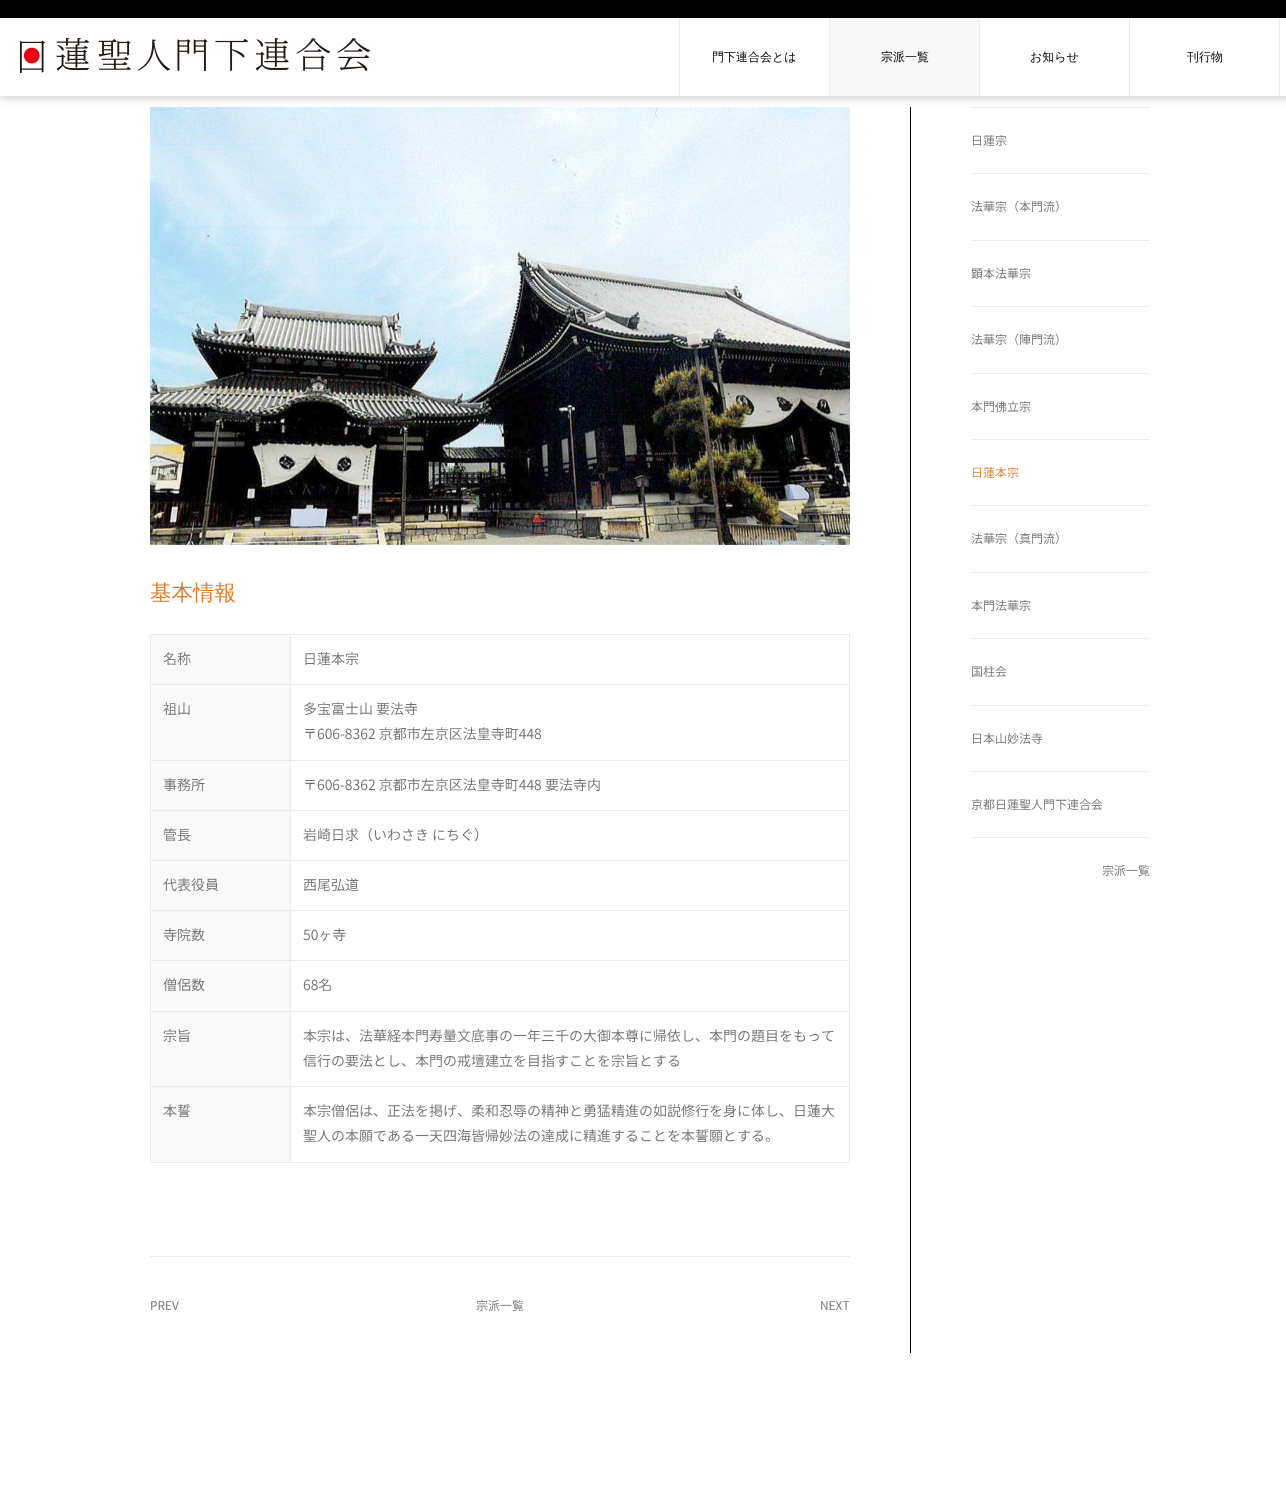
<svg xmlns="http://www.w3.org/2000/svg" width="1286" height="1492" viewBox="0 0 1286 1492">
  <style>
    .t1 { font: 500 12px WenQuanYi Zen Hei; fill: #000; }
    .t2 { font: 500 21.5px WenQuanYi Zen Hei; fill: #df7d2d; }
    .t3 { font: 300 14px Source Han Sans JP; fill: #707070; }
    .t4 { font: 300 12px Source Han Sans JP; fill: #707070; }
    .t5 { font: 500 12px WenQuanYi Zen Hei; fill: #707070; }
    .t6 { font: 300 12px Source Han Sans JP; fill: #df7d2d; }
  </style>
  <rect width="100%" height="100%" fill="#fff"/>
  <image x="150" y="107" width="700" height="438" href="images/2.png"/>
  <rect x="910" y="107" width="1" height="1246" fill="#000"/>
  <rect x="971" y="107" width="179" height="1" fill="#ebebeb"/>
  <rect x="0" y="2" width="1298" height="96" fill="#00000033" filter="blur(4px)"/>
  <rect x="0" y="18" width="1286" height="78" fill="#fff"/>
  <rect x="0" y="0" width="1286" height="18" fill="#000"/>
  <image x="20" y="38" width="350" height="35" href="images/1.png"/>
  <rect x="1279" y="18" width="1" height="78" fill="#ebebeb"/>
  <rect x="679" y="18" width="1" height="78" fill="#ebebeb"/>
  <text x="712" y="61" class="t1">門下連合会とは</text>
  <rect x="829" y="18" width="1" height="78" fill="#ebebeb"/>
  <rect x="830" y="18" width="149" height="78" fill="#f7f7f7"/>
  <text x="881" y="61" class="t1">宗派一覧</text>
  <rect x="979" y="18" width="1" height="78" fill="#ebebeb"/>
  <text x="1030" y="61" class="t1">お知らせ</text>
  <rect x="1129" y="18" width="1" height="78" fill="#ebebeb"/>
  <text x="1187" y="61" class="t1">刊行物</text>
  <text x="150" y="600" class="t2">基本情報</text>
  <rect x="151" y="635" width="139" height="49" fill="#f9f9f9"/>
  <rect x="290" y="634" width="560" height="1" fill="#ebebeb"/>
  <rect x="290" y="684" width="560" height="1" fill="#ebebeb"/>
  <rect x="290" y="760" width="560" height="1" fill="#ebebeb"/>
  <rect x="290" y="810" width="560" height="1" fill="#ebebeb"/>
  <rect x="290" y="860" width="560" height="1" fill="#ebebeb"/>
  <rect x="290" y="910" width="560" height="1" fill="#ebebeb"/>
  <rect x="290" y="960" width="560" height="1" fill="#ebebeb"/>
  <rect x="290" y="1011" width="560" height="1" fill="#ebebeb"/>
  <rect x="290" y="1086" width="560" height="1" fill="#ebebeb"/>
  <rect x="849" y="1086" width="1" height="77" fill="#ebebeb"/>
  <rect x="290" y="1162" width="560" height="1" fill="#ebebeb"/>
  <rect x="290" y="1086" width="1" height="77" fill="#ebebeb"/>
  <rect x="150" y="1086" width="141" height="1" fill="#ebebeb"/>
  <rect x="290" y="1011" width="1" height="76" fill="#ebebeb"/>
  <rect x="150" y="1011" width="141" height="1" fill="#ebebeb"/>
  <rect x="290" y="960" width="1" height="52" fill="#ebebeb"/>
  <rect x="150" y="960" width="141" height="1" fill="#ebebeb"/>
  <rect x="290" y="910" width="1" height="51" fill="#ebebeb"/>
  <rect x="150" y="910" width="141" height="1" fill="#ebebeb"/>
  <rect x="290" y="860" width="1" height="51" fill="#ebebeb"/>
  <rect x="150" y="860" width="141" height="1" fill="#ebebeb"/>
  <rect x="290" y="810" width="1" height="51" fill="#ebebeb"/>
  <rect x="150" y="810" width="141" height="1" fill="#ebebeb"/>
  <rect x="290" y="760" width="1" height="51" fill="#ebebeb"/>
  <rect x="150" y="760" width="141" height="1" fill="#ebebeb"/>
  <rect x="290" y="684" width="1" height="77" fill="#ebebeb"/>
  <rect x="150" y="684" width="141" height="1" fill="#ebebeb"/>
  <rect x="290" y="634" width="1" height="51" fill="#ebebeb"/>
  <rect x="150" y="634" width="141" height="1" fill="#ebebeb"/>
  <rect x="150" y="1162" width="141" height="1" fill="#ebebeb"/>
  <rect x="150" y="1086" width="1" height="77" fill="#ebebeb"/>
  <rect x="150" y="1011" width="1" height="76" fill="#ebebeb"/>
  <rect x="150" y="960" width="1" height="52" fill="#ebebeb"/>
  <rect x="150" y="910" width="1" height="51" fill="#ebebeb"/>
  <rect x="150" y="860" width="1" height="51" fill="#ebebeb"/>
  <rect x="150" y="810" width="1" height="51" fill="#ebebeb"/>
  <rect x="150" y="760" width="1" height="51" fill="#ebebeb"/>
  <rect x="150" y="684" width="1" height="77" fill="#ebebeb"/>
  <rect x="150" y="634" width="1" height="51" fill="#ebebeb"/>
  <text x="163" y="664" class="t3">名称</text>
  <rect x="849" y="1011" width="1" height="76" fill="#ebebeb"/>
  <rect x="849" y="960" width="1" height="52" fill="#ebebeb"/>
  <rect x="849" y="910" width="1" height="51" fill="#ebebeb"/>
  <rect x="849" y="860" width="1" height="51" fill="#ebebeb"/>
  <rect x="849" y="810" width="1" height="51" fill="#ebebeb"/>
  <rect x="849" y="760" width="1" height="51" fill="#ebebeb"/>
  <rect x="849" y="684" width="1" height="77" fill="#ebebeb"/>
  <rect x="849" y="634" width="1" height="51" fill="#ebebeb"/>
  <text x="303" y="664" class="t3">日蓮本宗</text>
  <rect x="151" y="685" width="139" height="75" fill="#f9f9f9"/>
  <text x="163" y="714" class="t3">祖山</text>
  <text x="303" y="714" class="t3">多宝富士山 要法寺</text>
  <text x="303" y="739" class="t3">〒606-8362 京都市左京区法皇寺町448</text>
  <rect x="151" y="761" width="139" height="49" fill="#f9f9f9"/>
  <text x="163" y="790" class="t3">事務所</text>
  <text x="303" y="790" class="t3">〒606-8362 京都市左京区法皇寺町448 要法寺内</text>
  <rect x="151" y="811" width="139" height="49" fill="#f9f9f9"/>
  <text x="163" y="840" class="t3">管長</text>
  <text x="303" y="840" class="t3">岩崎日求（いわさき にちぐ）</text>
  <rect x="151" y="861" width="139" height="49" fill="#f9f9f9"/>
  <text x="163" y="890" class="t3">代表役員</text>
  <text x="303" y="890" class="t3">西尾弘道</text>
  <rect x="151" y="911" width="139" height="49" fill="#f9f9f9"/>
  <text x="163" y="940" class="t3">寺院数</text>
  <text x="303" y="940" class="t3">50ヶ寺</text>
  <rect x="151" y="961" width="139" height="50" fill="#f9f9f9"/>
  <text x="163" y="990" class="t3">僧侶数</text>
  <text x="303" y="990" class="t3">68名</text>
  <rect x="151" y="1012" width="139" height="74" fill="#f9f9f9"/>
  <text x="163" y="1041" class="t3">宗旨</text>
  <text x="303" y="1041" class="t3">本宗は、法華経本門寿量文底事の一年三千の大御本尊に帰依し、本門の題目をもって</text>
  <text x="303" y="1066" class="t3">信行の要法とし、本門の戒壇建立を目指すことを宗旨とする</text>
  <rect x="151" y="1087" width="139" height="75" fill="#f9f9f9"/>
  <text x="163" y="1116" class="t3">本誓</text>
  <text x="303" y="1116" class="t3">本宗僧侶は、正法を掲げ、柔和忍辱の精神と勇猛精進の如説修行を身に体し、日蓮大</text>
  <text x="303" y="1141" class="t3">聖人の本願である一天四海皆帰妙法の達成に精進することを本誓願とする。</text>
  <rect x="150" y="1256" width="700" height="1" fill="#ebebeb"/>
  <text x="150" y="1310" class="t4">PREV</text>
  <text x="476" y="1310" class="t4">宗派一覧</text>
  <text x="820" y="1310" class="t4">NEXT</text>
  <rect x="971" y="173" width="179" height="1" fill="#ebebeb"/>
  <text x="971" y="145" class="t4">日蓮宗</text>
  <rect x="971" y="240" width="179" height="1" fill="#ebebeb"/>
  <text x="971" y="211" class="t4">法華宗（本門流）</text>
  <rect x="971" y="306" width="179" height="1" fill="#ebebeb"/>
  <text x="971" y="278" class="t4">顕本法華宗</text>
  <rect x="971" y="373" width="179" height="1" fill="#ebebeb"/>
  <text x="971" y="344" class="t4">法華宗（陣門流）</text>
  <rect x="971" y="439" width="179" height="1" fill="#ebebeb"/>
  <text x="971" y="411" class="t4">本門</text>
  <text x="995" y="411" class="t5">佛</text>
  <text x="1007" y="411" class="t4">立宗</text>
  <rect x="971" y="505" width="179" height="1" fill="#ebebeb"/>
  <text x="971" y="477" class="t6">日蓮本宗</text>
  <rect x="971" y="572" width="179" height="1" fill="#ebebeb"/>
  <text x="971" y="543" class="t4">法華宗（真門流）</text>
  <rect x="971" y="638" width="179" height="1" fill="#ebebeb"/>
  <text x="971" y="610" class="t4">本門法華宗</text>
  <rect x="971" y="705" width="179" height="1" fill="#ebebeb"/>
  <text x="971" y="676" class="t4">国柱会</text>
  <rect x="971" y="771" width="179" height="1" fill="#ebebeb"/>
  <text x="971" y="743" class="t4">日本山妙法寺</text>
  <rect x="971" y="837" width="179" height="1" fill="#ebebeb"/>
  <text x="971" y="809" class="t4">京都日蓮聖人門下連合会</text>
  <text x="1102" y="875" class="t4">宗派一覧</text>
</svg>
